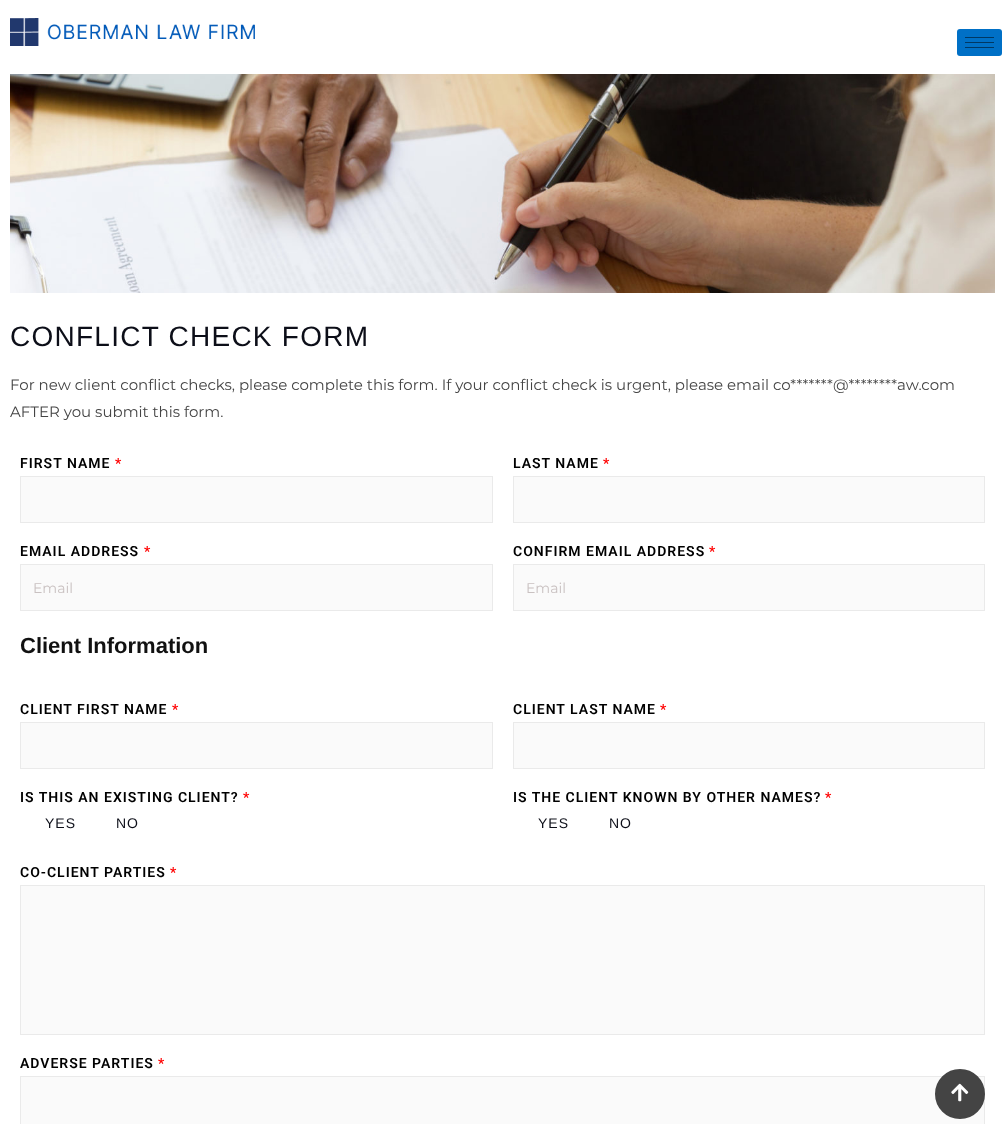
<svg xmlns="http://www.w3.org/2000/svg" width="1005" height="1124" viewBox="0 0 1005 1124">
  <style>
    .t1 { font: 28px Liberation Sans; letter-spacing: 1.25px; fill: #0c0e18; }
    .t2 { font: 15px Montserrat; fill: #444; }
    .t3 { font: 600 14px Roboto; letter-spacing: 1px; fill: #000; }
    .t4 { font: 600 14px Roboto; letter-spacing: 1px; fill: #f00; }
    .t5 { font: 14px Montserrat; fill: #c9c1c1; }
    .t6 { font: bold 22px Liberation Sans; fill: #111; }
    .t7 { font: 14px Liberation Sans; letter-spacing: 1px; fill: #0c0e18; }
  </style>
  <rect width="100%" height="100%" fill="#fff"/>
  <image x="10" y="18" width="245" height="28" href="images/1.png"/>
  <rect x="957" y="29" width="45" height="27" rx="3" fill="#0070c6"/>
  <rect x="965" y="37" width="29" height="1" fill="#003863"/>
  <rect x="965" y="42" width="29" height="1" fill="#003863"/>
  <rect x="965" y="47" width="29" height="1" fill="#003863"/>
  <image x="10" y="74" width="985" height="219" href="images/2.png"/>
  <text x="10" y="346" class="t1">CONFLICT CHECK FORM</text>
  <text x="10" y="390" class="t2">For new client conflict checks, please complete this form. If your conflict check is urgent, please email co*******</text>
  <text x="833" y="390" class="t2">@********</text>
  <text x="897" y="390" class="t2">aw.com</text>
  <text x="10" y="417" class="t2">AFTER you submit this form.</text>
  <text x="20" y="468" class="t3">FIRST NAME</text>
  <text x="115" y="468" class="t4">*</text>
  <rect x="20.5" y="476.5" width="472" height="46" fill="#fafafa" stroke="#eaeaea"/>
  <text x="20" y="556" class="t3">EMAIL ADDRESS</text>
  <text x="144" y="556" class="t4">*</text>
  <rect x="20.5" y="564.5" width="472" height="46" fill="#fafafa" stroke="#eaeaea"/>
  <text x="33" y="593" class="t5">Email</text>
  <text x="513" y="468" class="t3">LAST NAME</text>
  <text x="603" y="468" class="t4">*</text>
  <rect x="513.5" y="476.5" width="471" height="46" fill="#fafafa" stroke="#eaeaea"/>
  <text x="513" y="556" class="t3">CONFIRM EMAIL ADDRESS</text>
  <text x="709" y="556" class="t4">*</text>
  <rect x="513.5" y="564.5" width="471" height="46" fill="#fafafa" stroke="#eaeaea"/>
  <text x="526" y="593" class="t5">Email</text>
  <text x="20" y="653" class="t6">Client Information</text>
  <text x="20" y="714" class="t3">CLIENT FIRST NAME</text>
  <text x="172" y="714" class="t4">*</text>
  <rect x="20.5" y="722.5" width="472" height="46" fill="#fafafa" stroke="#eaeaea"/>
  <text x="20" y="802" class="t3">IS THIS AN EXISTING CLIENT?</text>
  <text x="243" y="802" class="t4">*</text>
  <text x="45" y="828" class="t7">YES</text>
  <text x="116" y="828" class="t7">NO</text>
  <text x="513" y="714" class="t3">CLIENT LAST NAME</text>
  <text x="660" y="714" class="t4">*</text>
  <rect x="513.5" y="722.5" width="471" height="46" fill="#fafafa" stroke="#eaeaea"/>
  <text x="513" y="802" class="t3">IS THE CLIENT KNOWN BY OTHER NAMES?</text>
  <text x="825" y="802" class="t4">*</text>
  <text x="538" y="828" class="t7">YES</text>
  <text x="609" y="828" class="t7">NO</text>
  <text x="20" y="877" class="t3">CO-CLIENT PARTIES</text>
  <text x="170" y="877" class="t4">*</text>
  <rect x="20.5" y="885.5" width="964" height="149" fill="#fafafa" stroke="#eaeaea"/>
  <text x="20" y="1068" class="t3">ADVERSE PARTIES</text>
  <text x="158" y="1068" class="t4">*</text>
  <rect x="20.5" y="1076.5" width="964" height="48" fill="#fafafa" stroke="#eaeaea"/>
  <circle cx="960" cy="1094" r="24" fill="#444" stroke="#444" stroke-width="2"/>
  <image x="951" y="1083" width="18" height="19" href="images/3.png"/>
</svg>
